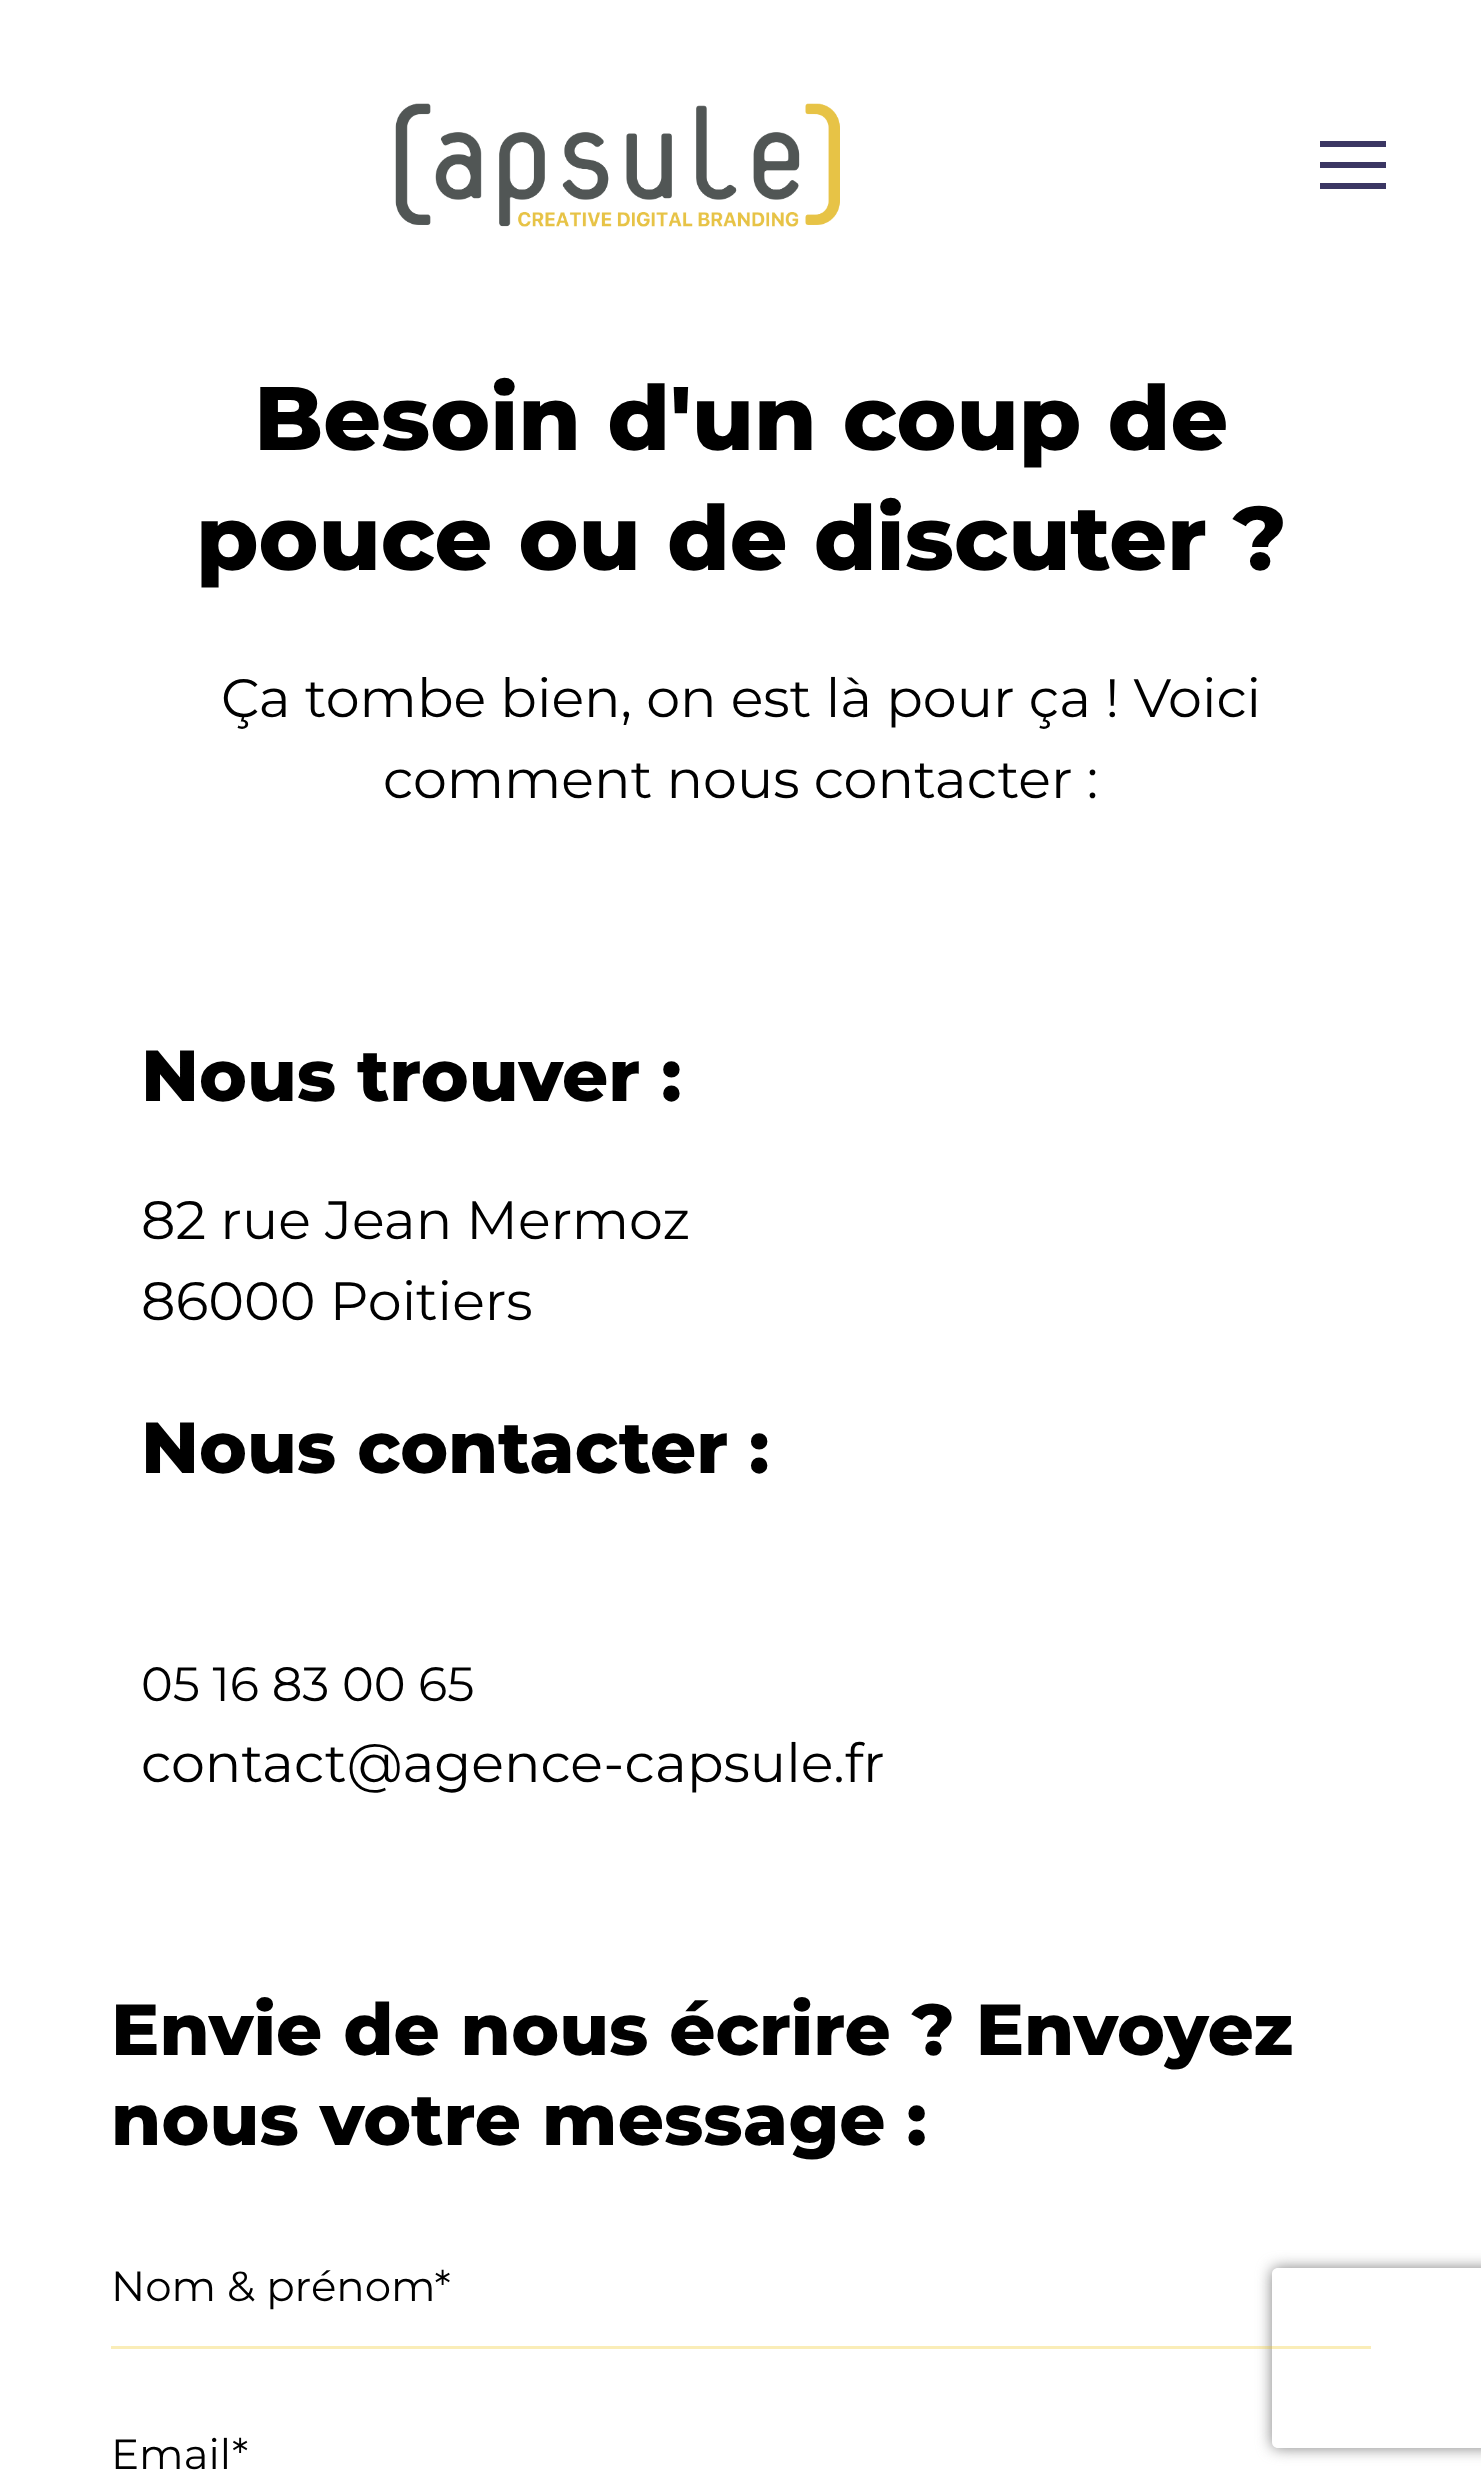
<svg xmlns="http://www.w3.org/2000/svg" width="1481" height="2490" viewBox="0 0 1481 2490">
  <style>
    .t1 { font: 800 90px Montserrat; fill: #000; }
    .t2 { font: 54px Montserrat; fill: #000; }
    .t3 { font: 800 72px Montserrat; fill: #000; }
    .t4 { font: 48px Montserrat; fill: #000; }
    .t5 { font: 42px Montserrat; fill: #000; }
  </style>
  <defs>
    <clipPath id="clip1"><path d="M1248 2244H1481V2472H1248ZM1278 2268H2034C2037.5 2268 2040 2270.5 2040 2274V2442C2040 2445.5 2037.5 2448 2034 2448H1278C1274.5 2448 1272 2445.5 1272 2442V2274C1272 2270.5 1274.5 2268 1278 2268Z" clip-rule="evenodd"/></clipPath>
  </defs>
  <rect width="100%" height="100%" fill="#fff"/>
  <image x="395" y="103" width="445" height="124" href="images/1.png"/>
  <rect x="1320" y="162" width="66" height="6" fill="#3b3663"/>
  <rect x="1320" y="141" width="66" height="6" fill="#3b3663"/>
  <rect x="1320" y="183" width="66" height="6" fill="#3b3663"/>
  <text x="254" y="450" class="t1">Besoin d'un coup de</text>
  <text x="196" y="570" class="t1">pouce ou de discuter ?</text>
  <text x="221" y="717" class="t2">Ça tombe bien, on est là pour ça ! Voici</text>
  <text x="383" y="798" class="t2">comment nous contacter :</text>
  <text x="141" y="1101" class="t3">Nous trouver :</text>
  <text x="141" y="1239" class="t2">82 rue Jean Mermoz</text>
  <text x="141" y="1320" class="t2">86000 Poitiers</text>
  <text x="141" y="1473" class="t3">Nous contacter :</text>
  <text x="141" y="1701" class="t4">05 16 83 00 65</text>
  <text x="141" y="1782" class="t2">contact@agence-capsule.fr</text>
  <text x="111" y="2055" class="t3">Envie de nous écrire ? Envoyez</text>
  <text x="111" y="2145" class="t3">nous votre message :</text>
  <g clip-path="url(#clip1)">
    <rect x="1272" y="2268" width="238" height="180" rx="6" fill="#808080" filter="blur(7.5px)"/>
  </g>
  <rect x="111" y="2346" width="1260" height="3" fill="#efc3154d"/>
  <text x="111" y="2301" class="t5">Nom &amp; prénom*</text>
  <text x="111" y="2469" class="t5">Email*</text>
</svg>
